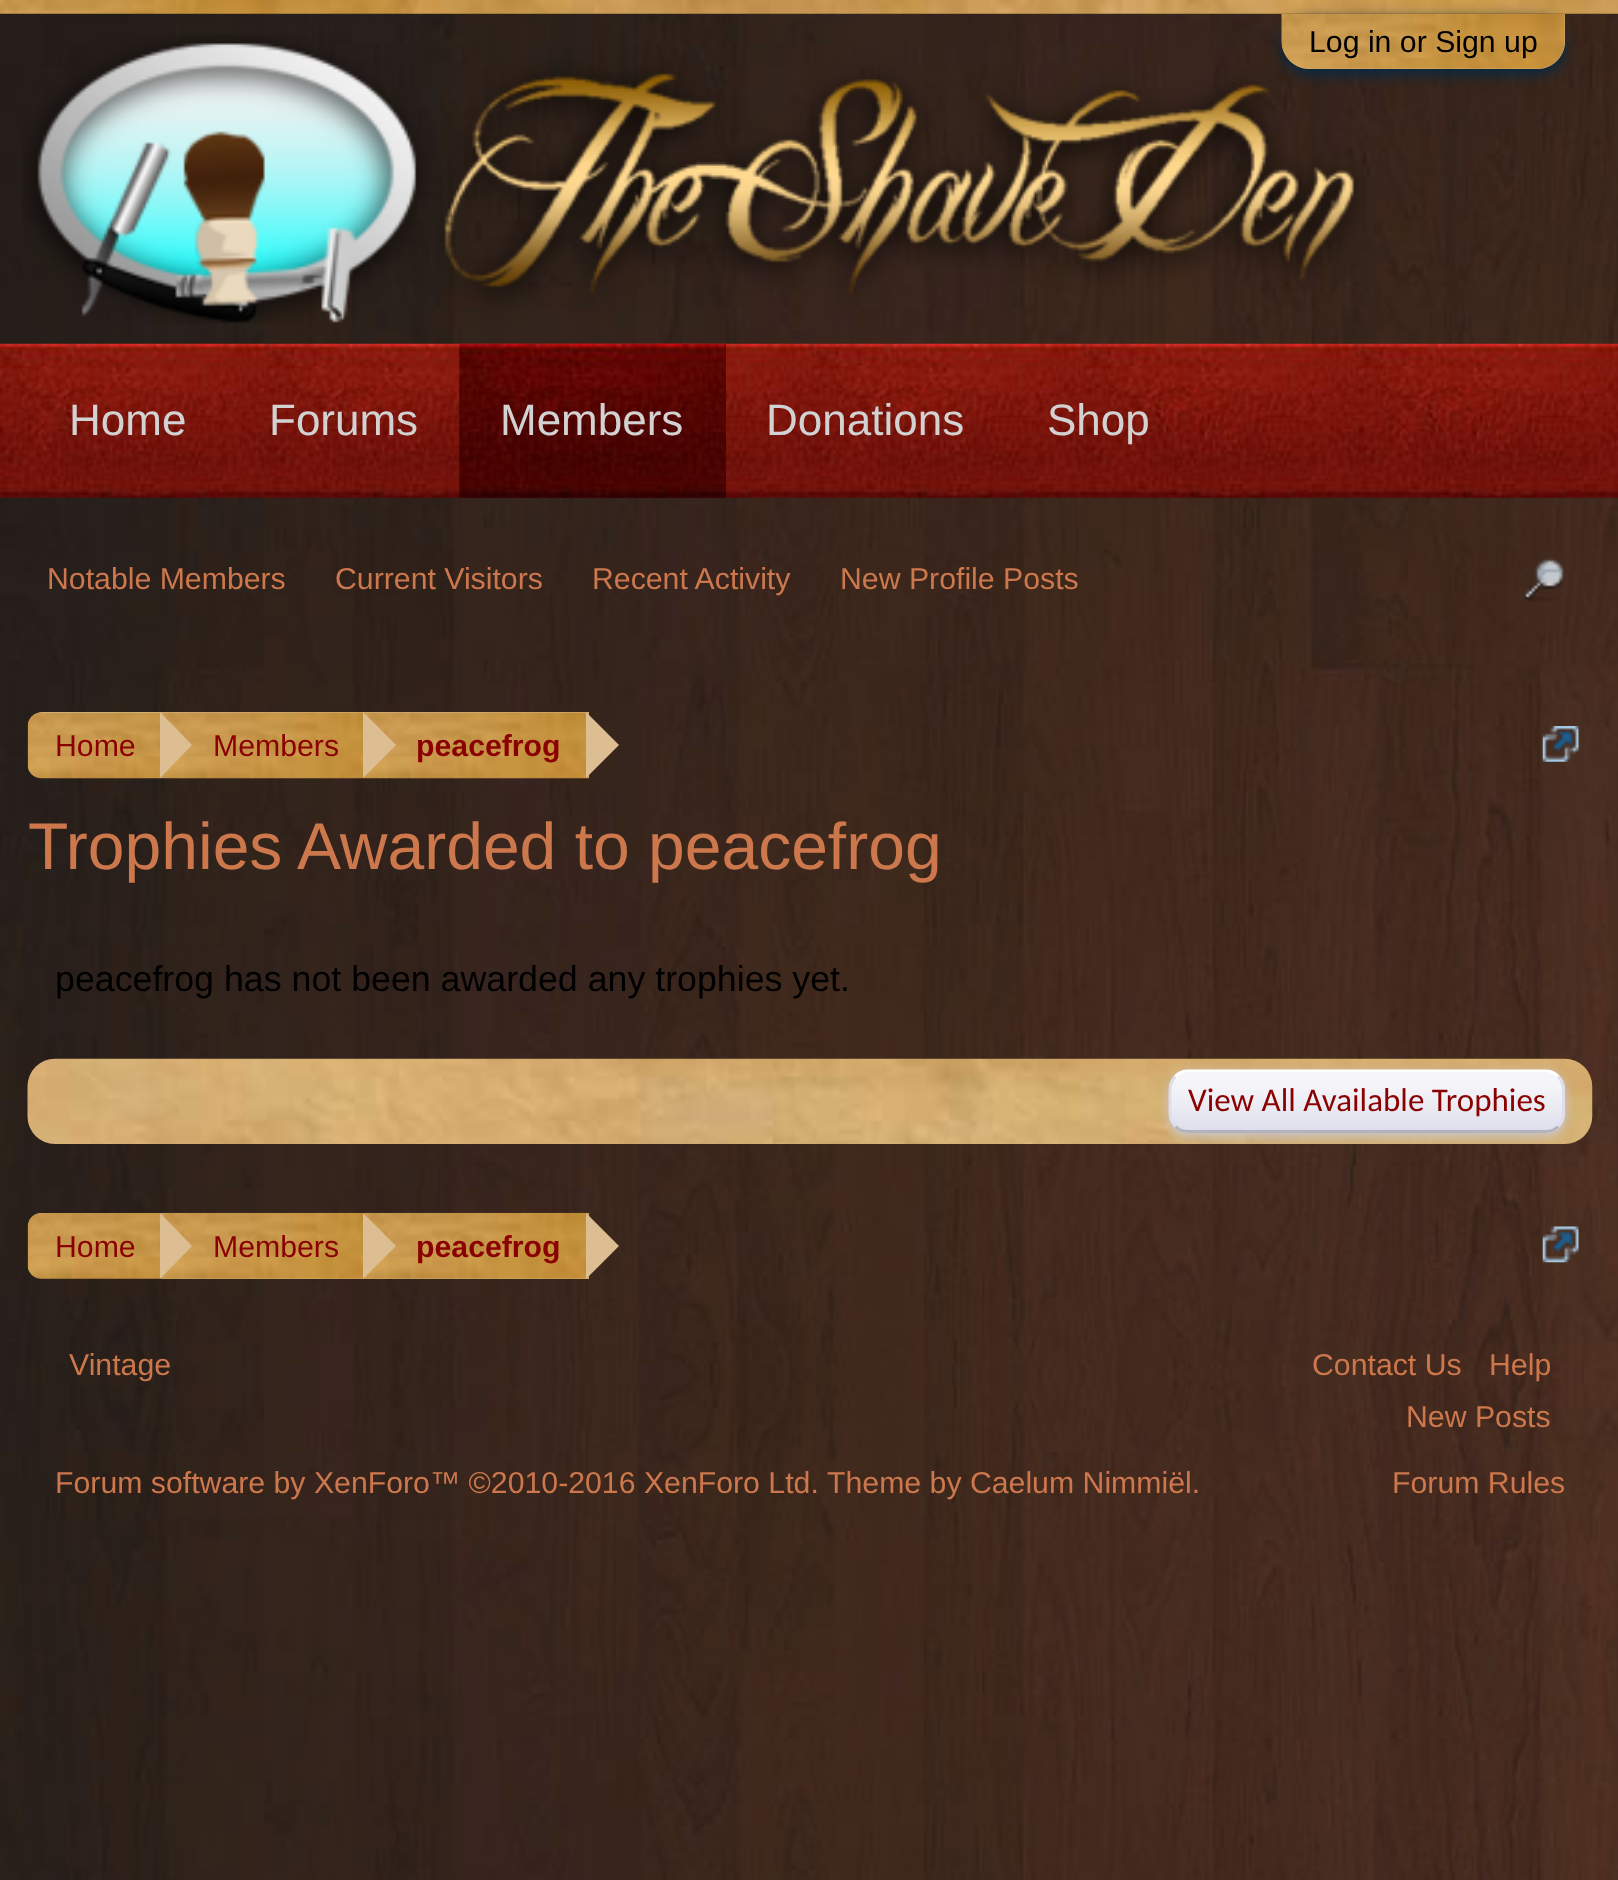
<svg xmlns="http://www.w3.org/2000/svg" width="1618" height="1880" viewBox="0 0 1618 1880">
  <style>
    .t1 { font: 30.25px Liberation Sans; fill: #000; }
    .t2 { font: 44px Liberation Sans; fill: #d2d2d2; }
    .t3 { font: 30.25px Liberation Sans; fill: #cd774d; }
    .t4 { font: 30.25px Liberation Sans; fill: #8b0000; }
    .t5 { font: bold 30.25px Liberation Sans; fill: #8b0000; }
    .t6 { font: 66px Liberation Sans; fill: #cd774d; }
    .t7 { font: 35.75px Liberation Sans; fill: #000; }
    .t8 { font: 33px Carlito; fill: #8b0000; }
  </style>
  <defs>
    <clipPath id="clip1"><rect x="28" y="712" width="1564" height="66" rx="14"/></clipPath>
    <clipPath id="clip2"><rect x="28" y="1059" width="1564" height="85" rx="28"/></clipPath>
  </defs>
  <rect width="100%" height="100%" fill="#fff"/>
  <image x="0" y="13" width="1618" height="1867" href="images/1.png"/>
  <image x="0" y="0" width="1618" height="14" href="images/2.png"/>
  <image x="22" y="34" width="1344" height="290" href="images/4.png"/>
  <rect x="1282" y="19" width="283" height="55" rx="27.5" fill="#032a46" filter="blur(7px)"/>
  <path d="M1282 14H1565V41.5C1565 56.5 1552.5 69 1537.5 69H1309.5C1294.5 69 1282 56.5 1282 41.5Z" fill="#ddbe92"/>
  <image x="1281" y="13" width="284" height="56" href="images/3.png"/>
  <text x="1309" y="52" class="t1">Log in or Sign up</text>
  <image x="0" y="343" width="1618" height="155" href="images/5.png"/>
  <image x="459" y="343" width="267" height="155" href="images/6.png"/>
  <text x="500" y="435" class="t2">Members</text>
  <text x="47" y="589" class="t3">Notable Members</text>
  <text x="335" y="589" class="t3">Current Visitors</text>
  <text x="592" y="589" class="t3">Recent Activity</text>
  <text x="840" y="589" class="t3">New Profile Posts</text>
  <text x="69" y="435" class="t2">Home</text>
  <text x="269" y="435" class="t2">Forums</text>
  <text x="766" y="435" class="t2">Donations</text>
  <text x="1047" y="435" class="t2">Shop</text>
  <image x="1523" y="558" width="42" height="44" href="images/7.png"/>
  <g clip-path="url(#clip1)">
    <path d="M42 712H162V781H42C34.5 781 28 774.5 28 767V726C28 718.5 34.5 712 42 712Z" fill="#ddbe92"/>
  </g>
  <image x="27" y="712" width="135" height="67" href="images/8.png"/>
  <text x="55" y="756" class="t4">Home</text>
  <rect x="162" y="712" width="427" height="66" fill="#ddbe92"/>
  <image x="162" y="712" width="204" height="67" href="images/9.png"/>
  <path d="M160 778V712L192 745Z" fill="#ddbe92"/>
  <text x="213" y="756" class="t4">Members</text>
  <image x="365" y="712" width="224" height="67" href="images/10.png"/>
  <path d="M363 778V712L396 745Z" fill="#ddbe92"/>
  <text x="416" y="756" class="t5">peacefrog</text>
  <path d="M586 778V712L619 745Z" fill="#ddbe92"/>
  <image x="1542" y="726" width="37" height="36" href="images/11.png"/>
  <text x="28" y="869" class="t6">Trophies Awarded to peacefrog</text>
  <text x="55" y="991" class="t7">peacefrog has not been awarded any trophies yet.</text>
  <image x="27" y="1058" width="1566" height="86" href="images/12.png"/>
  <g clip-path="url(#clip2)">
    <rect x="1169" y="1073" width="396" height="63" rx="19" fill="#c8c8d2" filter="blur(5.5px)"/>
  </g>
  <rect x="1169" y="1070" width="396" height="63" rx="19" fill="#dcdceb"/>
  <image x="1168" y="1072" width="397" height="57" href="images/13.png"/>
  <path d="M1175.5 1076.5C1178.5 1073 1183.5 1071 1188 1071H1545.5C1550 1071 1555 1073 1558 1076.5" fill="none" stroke="#fff" stroke-width="2.8"/>
  <path d="M1558 1076.5C1565 1083 1563.5 1092.5 1563.5 1101.5C1563.5 1110 1565 1119.5 1558 1126.5" fill="none" stroke="#ddddeb" stroke-width="2.8"/>
  <path d="M1558 1126.5C1555 1129.5 1550 1131.5 1545.5 1131.5H1188C1183.5 1131.5 1178.5 1129.5 1175.5 1126.5" fill="none" stroke="#b3b3bd" stroke-width="2.8"/>
  <path d="M1175.5 1126.5C1168.5 1119.5 1170 1110 1170 1101.5C1170 1092.5 1168.5 1083 1175.5 1076.5" fill="none" stroke="#ddddeb" stroke-width="2.8"/>
  <text x="1188" y="1111" class="t8">View All Available Trophies</text>
  <image x="27" y="1213" width="135" height="66" href="images/14.png"/>
  <text x="55" y="1257" class="t4">Home</text>
  <rect x="162" y="1213" width="427" height="66" fill="#ddbe92"/>
  <image x="162" y="1212" width="204" height="67" href="images/15.png"/>
  <path d="M160 1279V1213L192 1246Z" fill="#ddbe92"/>
  <text x="213" y="1257" class="t4">Members</text>
  <image x="365" y="1212" width="224" height="67" href="images/16.png"/>
  <path d="M363 1279V1213L396 1246Z" fill="#ddbe92"/>
  <text x="416" y="1257" class="t5">peacefrog</text>
  <path d="M586 1279V1213L619 1246Z" fill="#ddbe92"/>
  <image x="1542" y="1226" width="37" height="37" href="images/17.png"/>
  <text x="69" y="1375" class="t3">Vintage</text>
  <text x="1312" y="1375" class="t3">Contact Us</text>
  <text x="1489" y="1375" class="t3">Help</text>
  <text x="1406" y="1427" class="t3">New Posts</text>
  <text x="55" y="1493" class="t3">Forum software by XenForo™ ©2010-2016 XenForo Ltd.</text>
  <text x="827" y="1493" class="t3">Theme by Caelum Nimmiël.</text>
  <text x="1392" y="1493" class="t3">Forum Rules</text>
</svg>
